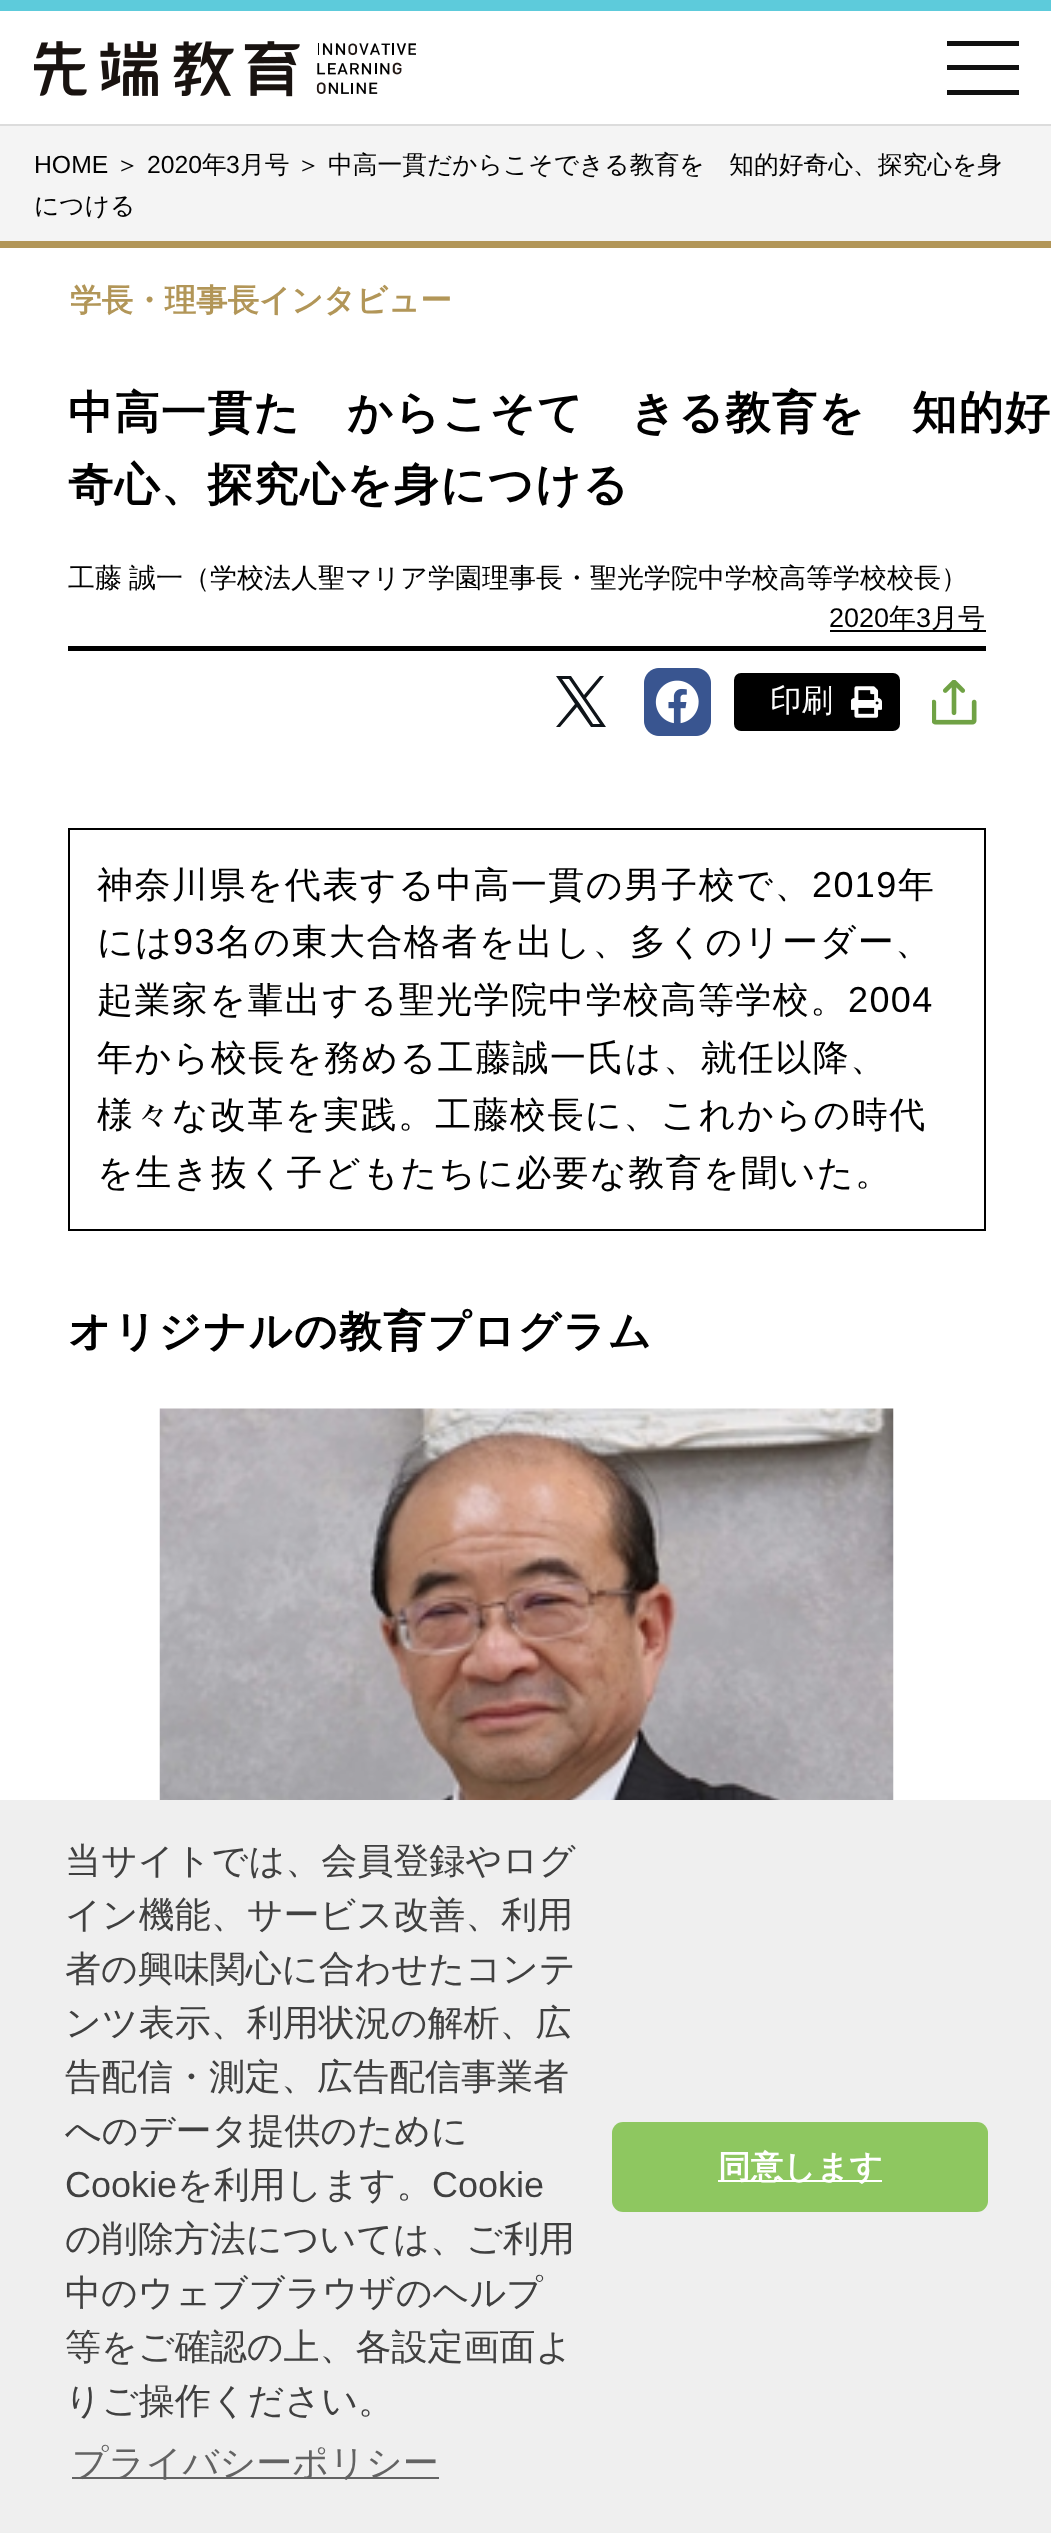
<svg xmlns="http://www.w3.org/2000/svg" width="1051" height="2533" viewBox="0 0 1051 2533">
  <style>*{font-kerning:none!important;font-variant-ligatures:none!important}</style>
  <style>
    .t1 { font: 24.75px Liberation Sans; fill: #000; }
    .t2 { font: 500 24.75px WenQuanYi Zen Hei; fill: #000; }
    .t3 { font: bold 31.5px WenQuanYi Zen Hei; fill: #b29658; }
    .t4 { font: bold 45px WenQuanYi Zen Hei; letter-spacing: 1.4px; fill: #000; }
    .t5 { font: 500 27px WenQuanYi Zen Hei; fill: #000; }
    .t6 { font: 27px Liberation Sans; fill: #000; }
    .t7 { font: 500 31.5px WenQuanYi Zen Hei; fill: #fff; }
    .t8 { font: 500 36px WenQuanYi Zen Hei; letter-spacing: 1.4px; fill: #000; }
    .t9 { font: 36px Liberation Sans; letter-spacing: 1.4px; fill: #000; }
    .t10 { font: bold 42.75px WenQuanYi Zen Hei; letter-spacing: 1.4px; fill: #000; }
    .t11 { font: 500 36px WenQuanYi Zen Hei; fill: #404040; }
    .t12 { font: 36px Liberation Sans; fill: #404040; }
    .t13 { font: 500 36px WenQuanYi Zen Hei; fill: #636363; }
    .t14 { font: bold 32.5px WenQuanYi Zen Hei; fill: #fff; }
  </style>
  <rect width="100%" height="100%" fill="#f4f4f4"/>
  <rect x="0" y="124" width="1051" height="2" fill="#dcdcdc"/>
  <rect x="0" y="11" width="1051" height="113" fill="#fff"/>
  <rect x="0" y="0" width="1051" height="11" fill="#5dcbdb"/>
  <image x="34" y="41" width="382" height="56" href="images/1.png"/>
  <rect x="947" y="41" width="72" height="5" fill="#111"/>
  <rect x="947" y="65" width="72" height="5" fill="#111"/>
  <rect x="947" y="90" width="72" height="5" fill="#111"/>
  <text x="34" y="173" class="t1">HOME</text>
  <text x="115" y="173" class="t2">＞</text>
  <text x="147" y="173" class="t1">2020</text>
  <text x="202" y="173" class="t2">年</text>
  <text x="226" y="173" class="t1">3</text>
  <text x="240" y="173" class="t2">月号</text>
  <text x="296" y="173" class="t2">＞</text>
  <text x="328" y="173" class="t2">中高一貫だからこそできる教育を　知的好奇心、探究心を身</text>
  <text x="34" y="214" class="t2">につける</text>
  <rect x="0" y="248" width="1051" height="1552" fill="#fff"/>
  <rect x="0" y="241" width="1051" height="7" fill="#b29658"/>
  <text x="70" y="311" class="t3">学長・理事長インタビュー</text>
  <rect x="68" y="646" width="918" height="5" fill="#000"/>
  <text x="68" y="428" class="t4">中高一貫だからこそできる教育を　知的好</text>
  <text x="68" y="500" class="t4">奇心、探究心を身につける</text>
  <text x="68" y="587" word-spacing="-1" class="t5">工藤 誠一（学校法人聖マリア学園理事長・聖光学院中学校高等学校校長）</text>
  <text x="829" y="627" class="t6">2020</text>
  <rect x="830" y="630" width="156" height="2" fill="#000"/>
  <text x="889" y="627" class="t5">年</text>
  <text x="916" y="627" class="t6">3</text>
  <text x="931" y="627" class="t5">月号</text>
  <path d="M586 698L604 676H600L584 695L571 676H556L575 704L556 727H560L577 707L591 727H606ZM580 704L562 679H569L600 724H593Z" fill="#0f1419"/>
  <image x="644" y="668" width="67" height="68" href="images/2.png"/>
  <rect x="734" y="673" width="166" height="58" rx="7" fill="#000"/>
  <text x="770" y="711" class="t7">印刷</text>
  <image x="851" y="686" width="31" height="32" href="images/3.png"/>
  <image x="932" y="680" width="45" height="45" href="images/4.png"/>
  <rect x="69" y="829" width="916" height="401" fill="none" stroke="#000" stroke-width="2"/>
  <text x="97" y="897" class="t8">神奈川県を代表する中高一貫の男子校で、</text>
  <text x="812" y="897" class="t9">2019</text>
  <text x="898" y="897" class="t8">年</text>
  <text x="97" y="954" class="t8">には</text>
  <text x="173" y="954" class="t9">93</text>
  <text x="216" y="954" class="t8">名の東大合格者を出し、多くのリーダー、</text>
  <text x="97" y="1012" class="t8">起業家を輩出する聖光学院中学校高等学校。</text>
  <text x="848" y="1012" class="t9">2004</text>
  <text x="97" y="1070" class="t8">年から校長を務める工藤誠一氏は、就任以降、</text>
  <text x="97" y="1127" class="t8">様々な改革を実践。工藤校長に、これからの時代</text>
  <text x="97" y="1185" class="t8">を生き抜く子どもたちに必要な教育を聞いた。</text>
  <text x="68" y="1346" class="t10">オリジナルの教育プログラム</text>
  <image x="159" y="1408" width="735" height="392" href="images/5.png"/>
  <rect x="0" y="1800" width="1051" height="733" fill="#efefef"/>
  <text x="65" y="1873" class="t11">当サイトでは、会員登録やログ</text>
  <text x="65" y="1927" class="t11">イン機能、サービス改善、利用</text>
  <text x="65" y="1981" class="t11">者の興味関心に合わせたコンテ</text>
  <text x="65" y="2035" class="t11">ンツ表示、利用状況の解析、広</text>
  <text x="65" y="2089" class="t11">告配信・測定、広告配信事業者</text>
  <text x="65" y="2143" class="t11">へのデータ提供のために</text>
  <text x="65" y="2197" class="t12">Cookie</text>
  <text x="177" y="2197" class="t11">を利用します。</text>
  <text x="432" y="2197" class="t12">Cookie</text>
  <text x="65" y="2251" class="t11">の削除方法については、ご利用</text>
  <text x="65" y="2305" class="t11">中のウェブブラウザのヘルプ</text>
  <text x="65" y="2359" class="t11">等をご確認の上、各設定画面よ</text>
  <text x="65" y="2413" class="t11">りご操作ください。</text>
  <rect x="72" y="2477" width="367" height="2" fill="#636363"/>
  <text x="72" y="2475" class="t13">プライバシーポリシー</text>
  <rect x="612" y="2122" width="376" height="90" rx="11" fill="#8ec760"/>
  <rect x="718" y="2180" width="164" height="2" fill="#fff"/>
  <text x="718" y="2178" class="t14">同意します</text>
</svg>
